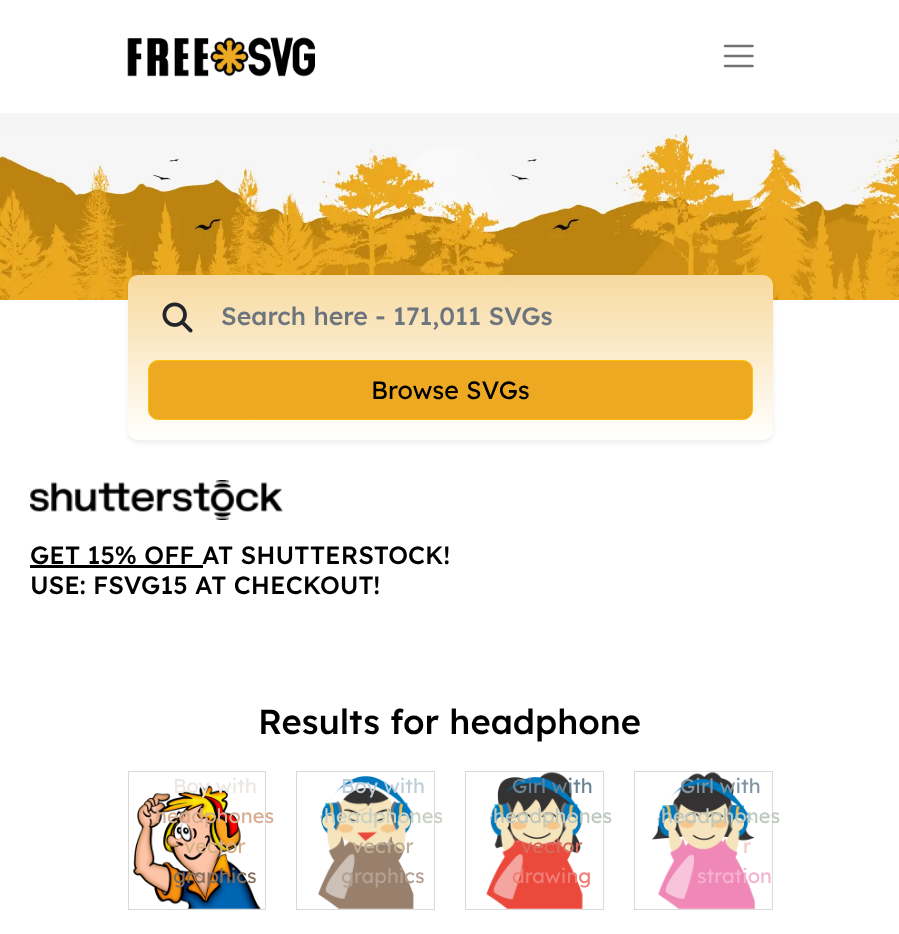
<svg xmlns="http://www.w3.org/2000/svg" width="899" height="934" viewBox="0 0 899 934">
  <style>
    .t1 { font: 500 25px Lexend; fill: #6c757d; }
    .t2 { font: 25px Lexend; fill: #000; }
    .t3 { font: 500 25px Lexend; fill: #000; }
    .t4 { font: 500 34.6px Lexend; fill: #000; }
    .t5 { font: 20px Lexend; fill: #ebe7e2; }
    .t6 { font: 20px Lexend; fill: #d6ad91; }
    .t7 { font: 20px Lexend; fill: #d6af85; }
    .t8 { font: 20px Lexend; fill: #84705e; }
    .t9 { font: 20px Lexend; fill: #bbced9; }
    .t10 { font: 20px Lexend; fill: #cad0c2; }
    .t11 { font: 20px Lexend; fill: #c0ad98; }
    .t12 { font: 20px Lexend; fill: #b4a193; }
    .t13 { font: 20px Lexend; fill: #668394; }
    .t14 { font: 20px Lexend; fill: #bec8be; }
    .t15 { font: 20px Lexend; fill: #d56c5d; }
    .t16 { font: 20px Lexend; fill: #f17e76; }
    .t17 { font: 20px Lexend; fill: #7e95a3; }
    .t18 { font: 20px Lexend; fill: #f5c7c9; }
    .t19 { font: 20px Lexend; fill: #f5b2d0; }
  </style>
  <defs>
    <linearGradient id="g1" gradientUnits="userSpaceOnUse" x1="450" y1="440" x2="450" y2="60"><stop offset="0" stop-color="#fff"/><stop offset="1" stop-color="#eda922"/></linearGradient>
  </defs>
  <rect width="100%" height="100%" fill="#fff"/>
  <image x="127" y="37" width="188" height="40" href="images/1.png"/>
  <path d="M725 46H752.5M725 56H752.5M725 66H752.5" fill="none" stroke="#737373" stroke-width="2.5" stroke-linecap="round"/>
  <image x="0" y="113" width="899" height="187" href="images/2.png"/>
  <rect x="128" y="278" width="645" height="165" rx="10" fill="#00000012" filter="blur(2.5px)"/>
  <rect x="128" y="275" width="645" height="165" rx="10" fill="url(#g1)"/>
  <image x="162" y="302" width="31" height="31" href="images/3.png"/>
  <text x="221" y="325" class="t1">Search here - 171,011 SVGs</text>
  <rect x="148.5" y="360.5" width="604" height="59" rx="9.5" fill="#eda922" stroke="#ffc107"/>
  <text x="371" y="399" class="t2">Browse SVGs</text>
  <image x="30" y="480" width="253" height="40" href="images/4.png"/>
  <text x="30" y="564" class="t3">GET 15% OFF AT SHUTTERSTOCK!</text>
  <rect x="30" y="565" width="173" height="3" fill="#000"/>
  <text x="30" y="594" class="t3">USE: FSVG15 AT CHECKOUT!</text>
  <text x="258" y="734" class="t4">Results for headphone</text>
  <rect x="128.5" y="771.5" width="137" height="138" fill="none" stroke="#d9d9d9"/>
  <image x="133" y="785" width="128" height="124" href="images/5.png"/>
  <text x="173" y="793" class="t5">Boy with</text>
  <text x="155" y="823" class="t6">headphones</text>
  <text x="184" y="853" class="t7">vector</text>
  <text x="173" y="883" class="t8">graphics</text>
  <rect x="296.5" y="771.5" width="138" height="138" fill="none" stroke="#d9d9d9"/>
  <image x="318" y="776" width="96" height="133" href="images/6.png"/>
  <text x="341" y="793" class="t9">Boy with</text>
  <text x="324" y="823" class="t10">headphones</text>
  <text x="352" y="853" class="t11">vector</text>
  <text x="341" y="883" class="t12">graphics</text>
  <rect x="465.5" y="771.5" width="138" height="138" fill="none" stroke="#d9d9d9"/>
  <image x="486" y="772" width="97" height="137" href="images/7.png"/>
  <text x="512" y="793" class="t13">Girl with</text>
  <text x="493" y="823" class="t14">headphones</text>
  <text x="521" y="853" class="t15">vector</text>
  <text x="512" y="883" class="t16">drawing</text>
  <rect x="634.5" y="771.5" width="138" height="138" fill="none" stroke="#d9d9d9"/>
  <image x="651" y="772" width="104" height="137" href="images/8.png"/>
  <text x="680" y="793" class="t17">Girl with</text>
  <text x="661" y="823" class="t14">headphones</text>
  <text x="743" y="853" class="t18">r</text>
  <text x="697" y="883" class="t19">stration</text>
</svg>
